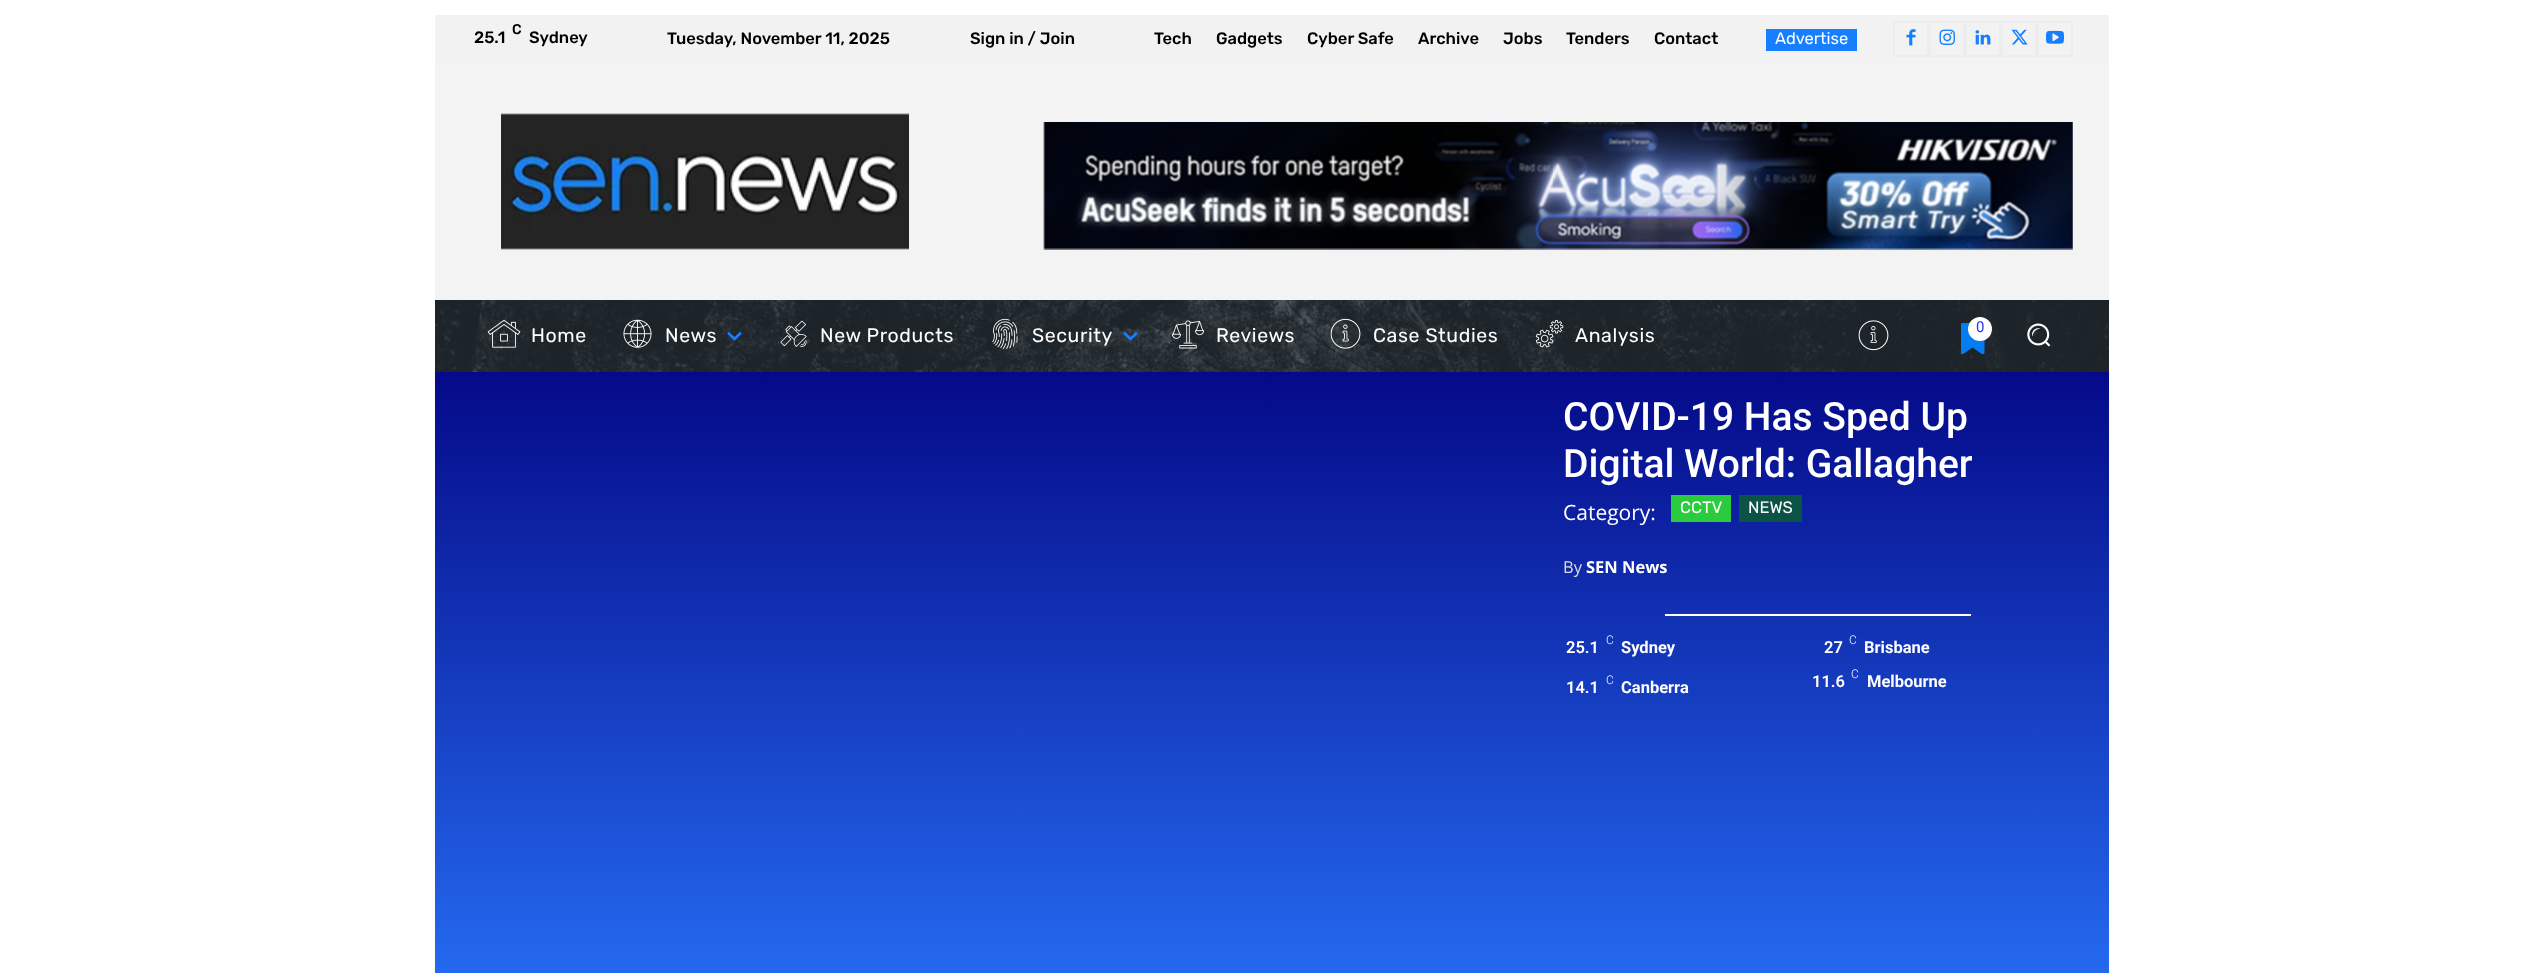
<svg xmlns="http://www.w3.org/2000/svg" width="2543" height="973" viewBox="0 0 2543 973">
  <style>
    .t1 { font: 500 14px Rubik; fill: #000; }
    .t2 { font: 500 16.5px Rubik; fill: #000; }
    .t3 { font: 16.5px Rubik; fill: #fff; }
    .t4 { font: 19.5px Rubik; letter-spacing: 0.6px; fill: #fff; }
    .t5 { font: 15px Roboto; fill: #2435f2; }
    .t6 { font: 500 39px Roboto; fill: #fff; }
    .t7 { font: 21px Open Sans; fill: #fff; }
    .t8 { font: 16.5px Open Sans; fill: #ddd; }
    .t9 { font: bold 16.5px Open Sans; fill: #fff; }
    .t10 { font: 300 12px Roboto; fill: #fff; }
    .t11 { font: 600 16.5px Roboto; fill: #fff; }
    .t12 { font: bold 16.5px Roboto; fill: #fff; }
  </style>
  <defs>
    <linearGradient id="g1" gradientUnits="userSpaceOnUse" x1="1272" y1="330" x2="1272" y2="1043"><stop offset="0" stop-color="#020381"/><stop offset="1" stop-color="#2874fc"/></linearGradient>
  </defs>
  <rect width="100%" height="100%" fill="#fff"/>
  <rect x="435" y="15" width="1674" height="48" fill="#f2f2f2"/>
  <text x="512" y="34" class="t1">C</text>
  <text x="474" y="43" class="t2">25.1</text>
  <text x="529" y="43" class="t2">Sydney</text>
  <text x="667" y="44" class="t2">Tuesday, November 11, 2025</text>
  <text x="970" y="44" class="t2">Sign in / Join</text>
  <text x="1154" y="44" class="t2">Tech</text>
  <text x="1216" y="44" class="t2">Gadgets</text>
  <text x="1307" y="44" class="t2">Cyber Safe</text>
  <text x="1418" y="44" class="t2">Archive</text>
  <text x="1503" y="44" class="t2">Jobs</text>
  <text x="1566" y="44" class="t2">Tenders</text>
  <text x="1654" y="44" class="t2">Contact</text>
  <rect x="1766" y="29" width="91" height="22" fill="#157fff"/>
  <text x="1775" y="44" class="t3">Advertise</text>
  <rect x="1894" y="22" width="34" height="34" fill="none" stroke="#ededed" stroke-width="2"/>
  <image x="1906" y="29" width="10" height="17" href="images/1.png"/>
  <rect x="1930" y="22" width="34" height="34" fill="none" stroke="#ededed" stroke-width="2"/>
  <image x="1939" y="29" width="16" height="16" href="images/2.png"/>
  <rect x="1966" y="22" width="34" height="34" fill="none" stroke="#ededed" stroke-width="2"/>
  <image x="1975" y="30" width="16" height="15" href="images/3.png"/>
  <rect x="2002" y="22" width="34" height="34" fill="none" stroke="#ededed" stroke-width="2"/>
  <image x="2011" y="29" width="17" height="16" href="images/4.png"/>
  <rect x="2038" y="22" width="34" height="34" fill="none" stroke="#ededed" stroke-width="2"/>
  <image x="2046" y="30" width="18" height="14" href="images/5.png"/>
  <rect x="435" y="63" width="1674" height="237" fill="#f3f3f3"/>
  <image x="501" y="113" width="408" height="137" href="images/6.png"/>
  <image x="1043" y="122" width="1030" height="128" href="images/7.png"/>
  <rect x="435" y="300" width="1674" height="72" fill="#232d35"/>
  <image x="435" y="300" width="1674" height="72" href="images/8.png"/>
  <image x="487" y="320" width="34" height="28" href="images/9.png"/>
  <text x="531" y="342" class="t4">Home</text>
  <image x="623" y="319" width="29" height="29" href="images/10.png"/>
  <text x="665" y="342" class="t4">News</text>
  <image x="727" y="332" width="15" height="9" href="images/11.png"/>
  <image x="780" y="320" width="27" height="27" href="images/12.png"/>
  <text x="820" y="342" class="t4">New Products</text>
  <image x="992" y="318" width="26" height="32" href="images/13.png"/>
  <text x="1032" y="342" class="t4">Security</text>
  <image x="1123" y="332" width="15" height="9" href="images/14.png"/>
  <image x="1171" y="320" width="34" height="29" href="images/15.png"/>
  <text x="1216" y="342" class="t4">Reviews</text>
  <image x="1330" y="318" width="31" height="31" href="images/16.png"/>
  <text x="1373" y="342" class="t4">Case Studies</text>
  <image x="1535" y="320" width="29" height="28" href="images/17.png"/>
  <text x="1575" y="342" class="t4">Analysis</text>
  <image x="1858" y="320" width="31" height="31" href="images/18.png"/>
  <image x="1961" y="323" width="24" height="31" href="images/19.png"/>
  <circle cx="1980" cy="329" r="12" fill="#fff"/>
  <text x="1976" y="332" class="t5">0</text>
  <image x="2027" y="323" width="24" height="24" href="images/20.png"/>
  <rect x="435" y="372" width="1674" height="601" fill="url(#g1)"/>
  <text x="1563" y="430" class="t6">COVID-19 Has Sped Up</text>
  <text x="1563" y="477" class="t6">Digital World: Gallagher</text>
  <text x="1563" y="520" class="t7">Category:</text>
  <rect x="1671" y="495" width="60" height="27" fill="#2acc3d"/>
  <text x="1680" y="513" class="t3">CCTV</text>
  <rect x="1739" y="495" width="63" height="27" fill="#0b5345"/>
  <text x="1748" y="513" class="t3">NEWS</text>
  <text x="1563" y="573" class="t8">By</text>
  <text x="1586" y="573" class="t9">SEN News</text>
  <rect x="1665" y="614" width="306" height="2" fill="#fff"/>
  <text x="1606" y="644" class="t10">C</text>
  <text x="1566" y="653" class="t11">25.1</text>
  <text x="1621" y="653" class="t12">Sydney</text>
  <text x="1849" y="644" class="t10">C</text>
  <text x="1824" y="653" class="t11">27</text>
  <text x="1864" y="653" class="t12">Brisbane</text>
  <text x="1606" y="684" class="t10">C</text>
  <text x="1566" y="693" class="t11">14.1</text>
  <text x="1621" y="693" class="t12">Canberra</text>
  <text x="1851" y="678" class="t10">C</text>
  <text x="1812" y="687" class="t11">11.6</text>
  <text x="1867" y="687" class="t12">Melbourne</text>
</svg>
